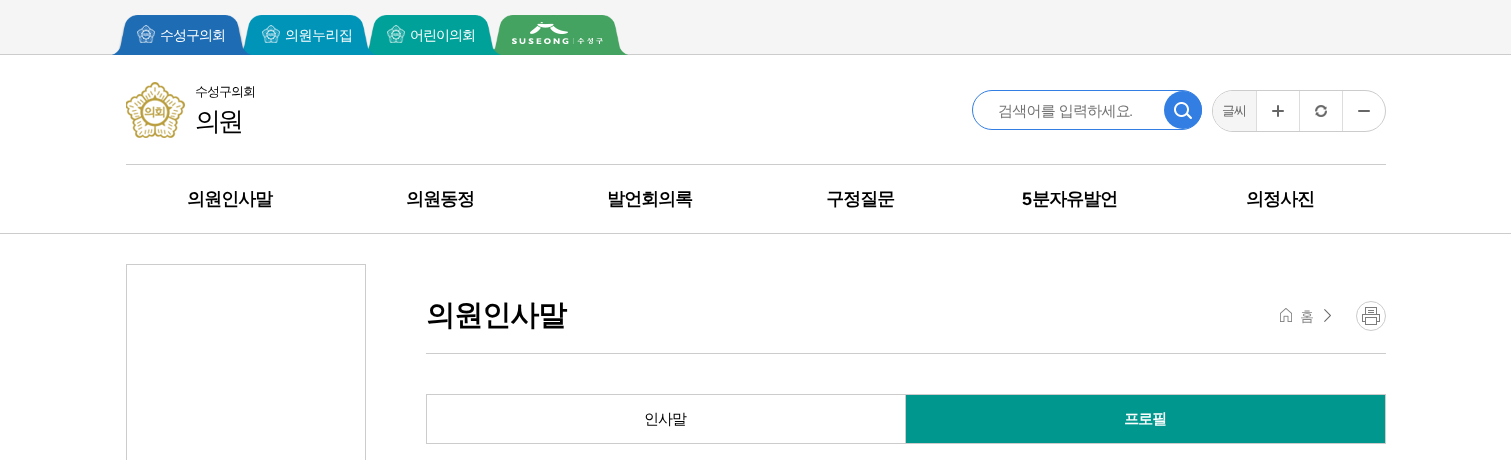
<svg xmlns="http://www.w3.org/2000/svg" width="1511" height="460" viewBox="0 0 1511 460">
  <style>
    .t1 { font: 500 14px WenQuanYi Zen Hei; letter-spacing: -1px; fill: #fff; }
    .t2 { font: 500 14px WenQuanYi Zen Hei; letter-spacing: -0.5px; fill: #fff; }
    .t3 { font: 500 13px WenQuanYi Zen Hei; letter-spacing: -1px; fill: #000; }
    .t4 { font: 500 26px WenQuanYi Zen Hei; letter-spacing: -3px; fill: #000; }
    .t5 { font: 500 15px WenQuanYi Zen Hei; letter-spacing: -0.75px; fill: #757575; }
    .t6 { font: 15px Liberation Sans; letter-spacing: -0.75px; fill: #757575; }
    .t7 { font: 500 13px WenQuanYi Zen Hei; letter-spacing: -1px; fill: #666; }
    .t8 { font: bold 18px WenQuanYi Zen Hei; letter-spacing: -1px; fill: #000; }
    .t9 { font: bold 18px Liberation Sans; letter-spacing: -1px; fill: #000; }
    .t10 { font: bold 29px WenQuanYi Zen Hei; letter-spacing: -1px; fill: #000; }
    .t11 { font: 500 14px WenQuanYi Zen Hei; letter-spacing: -1px; fill: #888; }
    .t12 { font: 500 15px WenQuanYi Zen Hei; letter-spacing: -1px; fill: #000; }
    .t13 { font: bold 15px WenQuanYi Zen Hei; letter-spacing: -1px; fill: #fff; }
  </style>
  <rect width="100%" height="100%" fill="#fff"/>
  <rect x="0" y="0" width="1511" height="54" fill="#f5f5f5"/>
  <rect x="0" y="54" width="1511" height="1" fill="#ccc"/>
  <image x="112" y="15" width="70" height="40" href="images/1.png"/>
  <image x="240" y="15" width="68" height="40" href="images/4.png"/>
  <image x="182" y="15" width="69" height="40" href="images/2.png"/>
  <image x="137" y="25" width="18" height="18" href="images/3.png"/>
  <text x="160" y="40" class="t1">수성구의회</text>
  <image x="368" y="15" width="65" height="40" href="images/7.png"/>
  <image x="308" y="15" width="68" height="40" href="images/5.png"/>
  <image x="262" y="25" width="18" height="18" href="images/6.png"/>
  <text x="285" y="40" class="t2">의원누리집</text>
  <image x="493" y="15" width="66" height="40" href="images/10.png"/>
  <image x="433" y="15" width="68" height="40" href="images/8.png"/>
  <image x="387" y="25" width="18" height="18" href="images/9.png"/>
  <text x="410" y="40" class="t1">어린이의회</text>
  <image x="559" y="15" width="69" height="40" href="images/11.png"/>
  <image x="512" y="22" width="91" height="22" href="images/12.png"/>
  <rect x="126" y="164" width="1260" height="1" fill="#ccc"/>
  <image x="126" y="82" width="59" height="56" href="images/13.png"/>
  <text x="195" y="96" class="t3">수성구의회</text>
  <text x="195" y="130" class="t4">의원</text>
  <rect x="972.5" y="90.5" width="229" height="39" rx="19.5" fill="none" stroke="#337ee2"/>
  <text x="998" y="116" class="t5">검색어를 입력하세요</text>
  <text x="1129" y="116" class="t6">.</text>
  <circle cx="1183" cy="110" r="19" fill="#337ee2"/>
  <image x="1174" y="102" width="18" height="17" href="images/14.png"/>
  <rect x="1212.5" y="90.5" width="173" height="41" rx="20.5" fill="none" stroke="#ccc"/>
  <path d="M1233 91H1256V131H1233C1222 131 1213 122 1213 111C1213 100 1222 91 1233 91Z" fill="#f5f5f5"/>
  <text x="1222" y="115" class="t7">글씨</text>
  <image x="1272" y="105" width="12" height="12" href="images/15.png"/>
  <rect x="1256" y="91" width="1" height="40" fill="#ddd"/>
  <image x="1315" y="105" width="12" height="12" href="images/16.png"/>
  <rect x="1299" y="91" width="1" height="40" fill="#ddd"/>
  <image x="1358" y="110" width="12" height="2" href="images/17.png"/>
  <rect x="1342" y="91" width="1" height="40" fill="#ddd"/>
  <rect x="0" y="233" width="1511" height="1" fill="#ccc"/>
  <text x="187" y="205" class="t8">의원인사말</text>
  <text x="406" y="205" class="t8">의원동정</text>
  <text x="607" y="205" class="t8">발언회의록</text>
  <text x="826" y="205" class="t8">구정질문</text>
  <text x="1022" y="205" class="t9">5</text>
  <text x="1032" y="205" class="t8">분자유발언</text>
  <text x="1246" y="205" class="t8">의정사진</text>
  <rect x="126" y="264" width="240" height="1" fill="#ccc"/>
  <rect x="365" y="264" width="1" height="196" fill="#ccc"/>
  <rect x="126" y="264" width="1" height="196" fill="#ccc"/>
  <rect x="426" y="353" width="960" height="1" fill="#ccc"/>
  <text x="426" y="325" class="t10">의원인사말</text>
  <image x="1280" y="308" width="12" height="14" href="images/18.png"/>
  <text x="1300" y="321" class="t11">홈</text>
  <image x="1324" y="309" width="7" height="13" href="images/19.png"/>
  <image x="1362" y="307" width="18" height="18" href="images/20.png"/>
  <circle cx="1371" cy="316" r="14.5" fill="none" stroke="#ccc"/>
  <rect x="426" y="394" width="960" height="1" fill="#ccc"/>
  <rect x="426" y="394" width="1" height="50" fill="#ccc"/>
  <rect x="905" y="395" width="1" height="49" fill="#ccc"/>
  <rect x="427" y="443" width="479" height="1" fill="#ccc"/>
  <text x="644" y="424" class="t12">인사말</text>
  <rect x="906" y="395" width="479" height="48" fill="#00988e"/>
  <rect x="1385" y="395" width="1" height="49" fill="#ccc"/>
  <rect x="906" y="443" width="480" height="1" fill="#ccc"/>
  <text x="1124" y="424" class="t13">프로필</text>
</svg>
